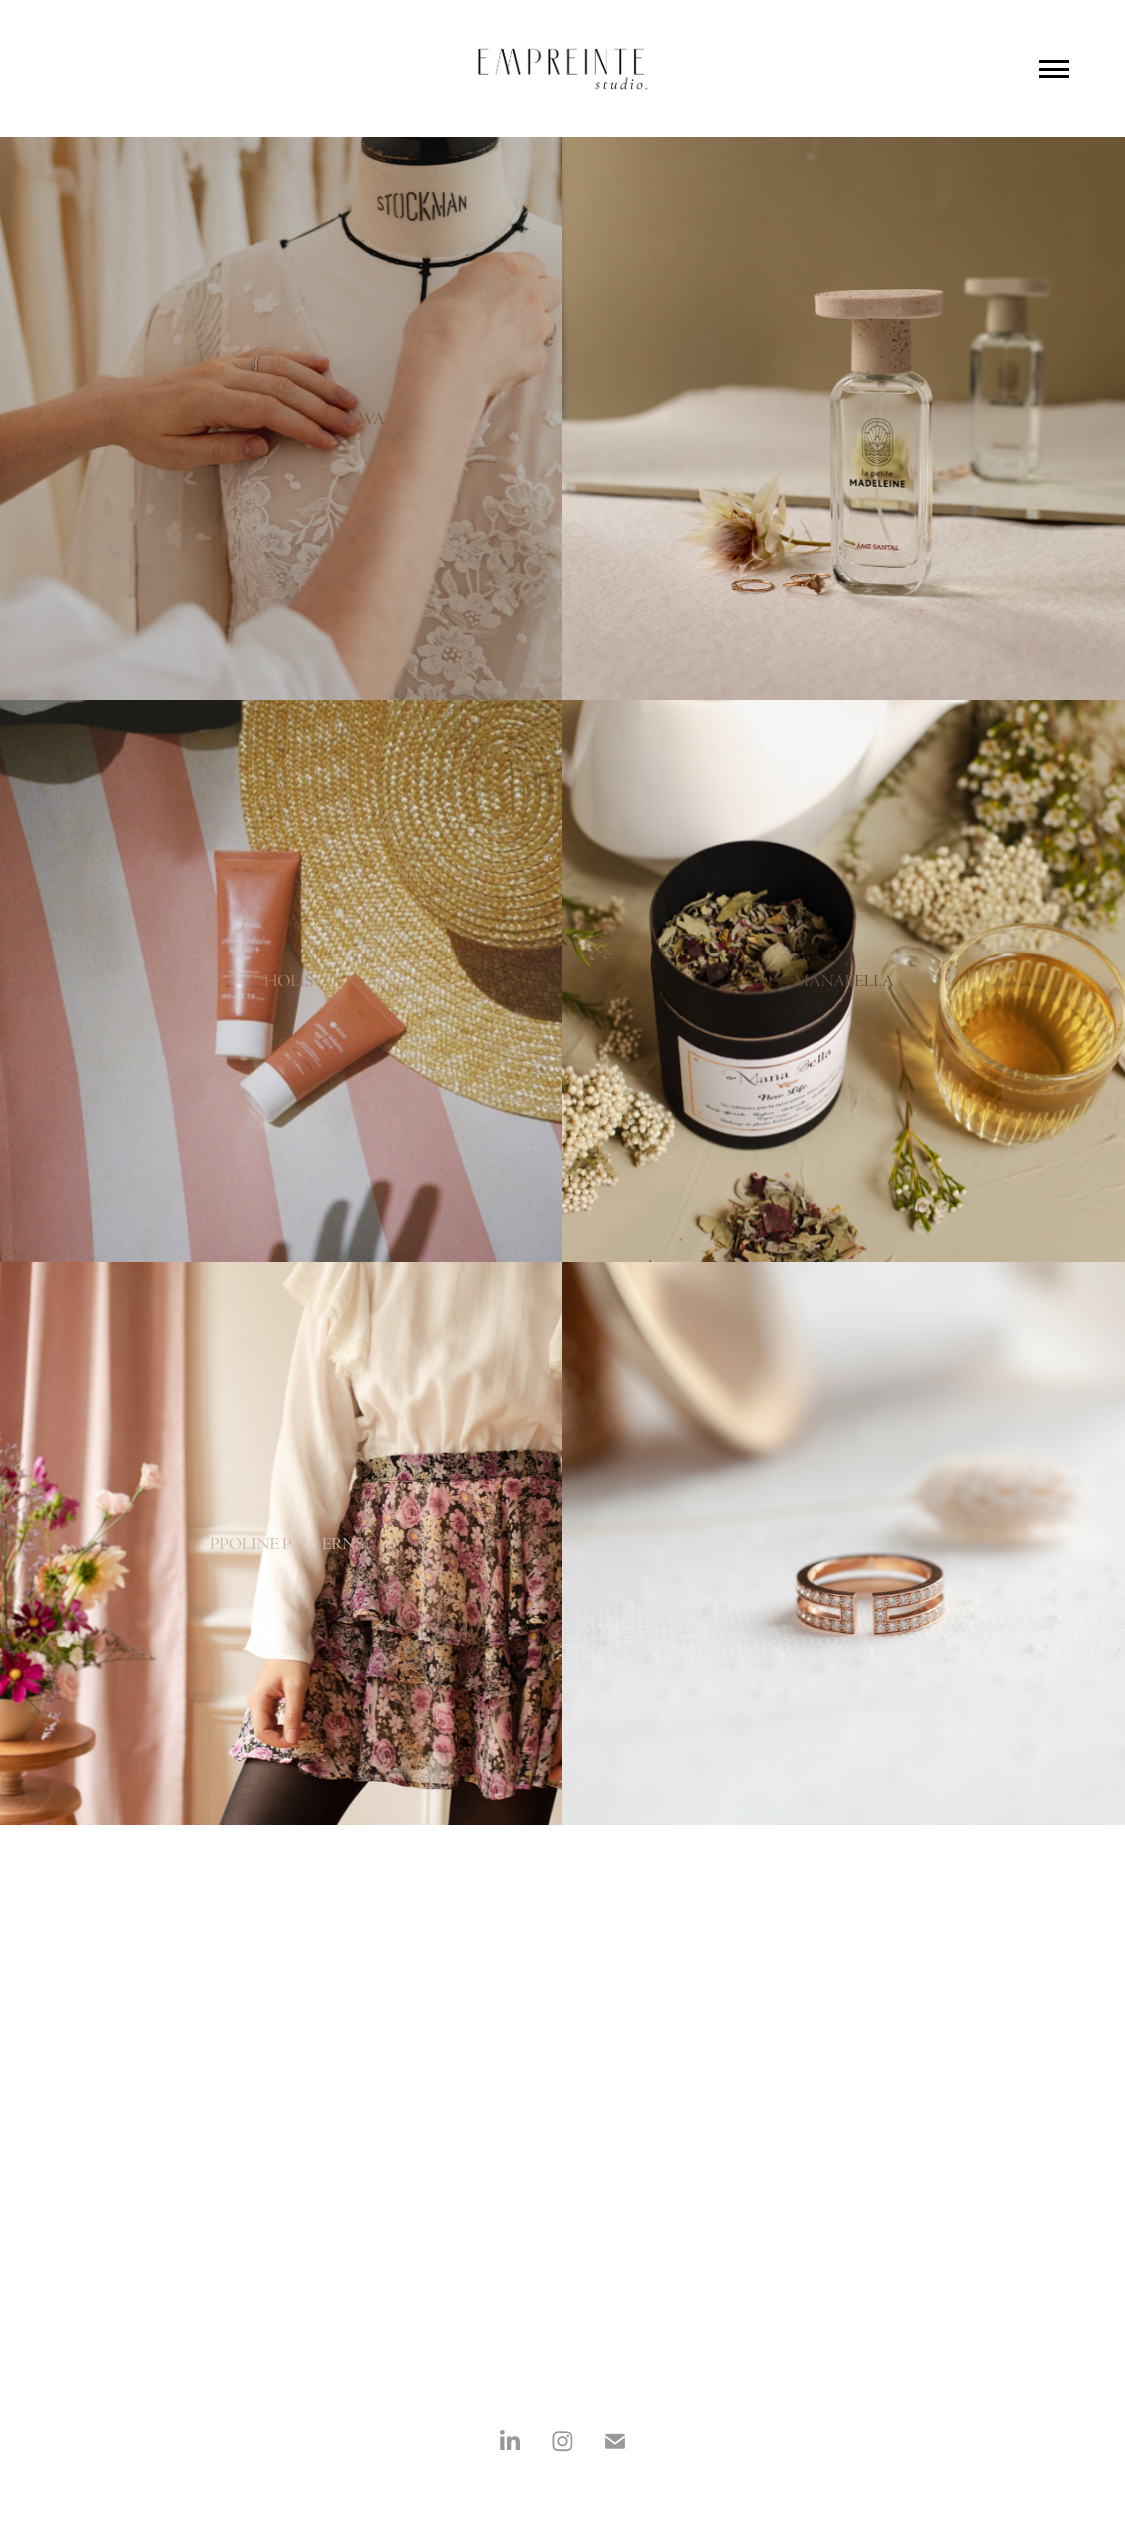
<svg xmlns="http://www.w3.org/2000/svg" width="1125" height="2547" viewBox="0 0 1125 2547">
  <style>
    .t1 { font: 17.5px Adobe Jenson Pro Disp; fill: #875840; }
    .t2 { font: 17.5px Adobe Jenson Pro Disp; fill: #ab836d; }
    .t3 { font: 17.5px Adobe Jenson Pro Disp; fill: #61523d; }
    .t4 { font: 17.5px Adobe Jenson Pro Disp; fill: #cbb9ad; }
  </style>
  <rect width="100%" height="100%" fill="#fff"/>
  <image x="478" y="48" width="170" height="42" href="images/1.png"/>
  <rect x="1039" y="60" width="30" height="3" fill="#000"/>
  <rect x="1039" y="68" width="30" height="3" fill="#000"/>
  <rect x="1039" y="75" width="30" height="3" fill="#000"/>
  <image x="0" y="137" width="562" height="563" href="images/2.png"/>
  <text x="358" y="424" class="t1">WA</text>
  <image x="562" y="137" width="563" height="563" href="images/3.png"/>
  <image x="0" y="700" width="562" height="562" href="images/4.png"/>
  <text x="264" y="986" class="t2">HOLIS</text>
  <image x="562" y="700" width="563" height="562" href="images/5.png"/>
  <text x="794" y="986" class="t3">MANABELLA</text>
  <image x="0" y="1262" width="562" height="563" href="images/6.png"/>
  <text x="210" y="1549" class="t4">PPOLINE P</text>
  <text x="322" y="1549" class="t4">ERNS</text>
  <image x="562" y="1262" width="563" height="563" href="images/7.png"/>
  <image x="500" y="2430" width="20" height="20" href="images/8.png"/>
  <image x="552" y="2431" width="21" height="21" href="images/9.png"/>
  <image x="605" y="2433" width="20" height="16" href="images/10.png"/>
</svg>
